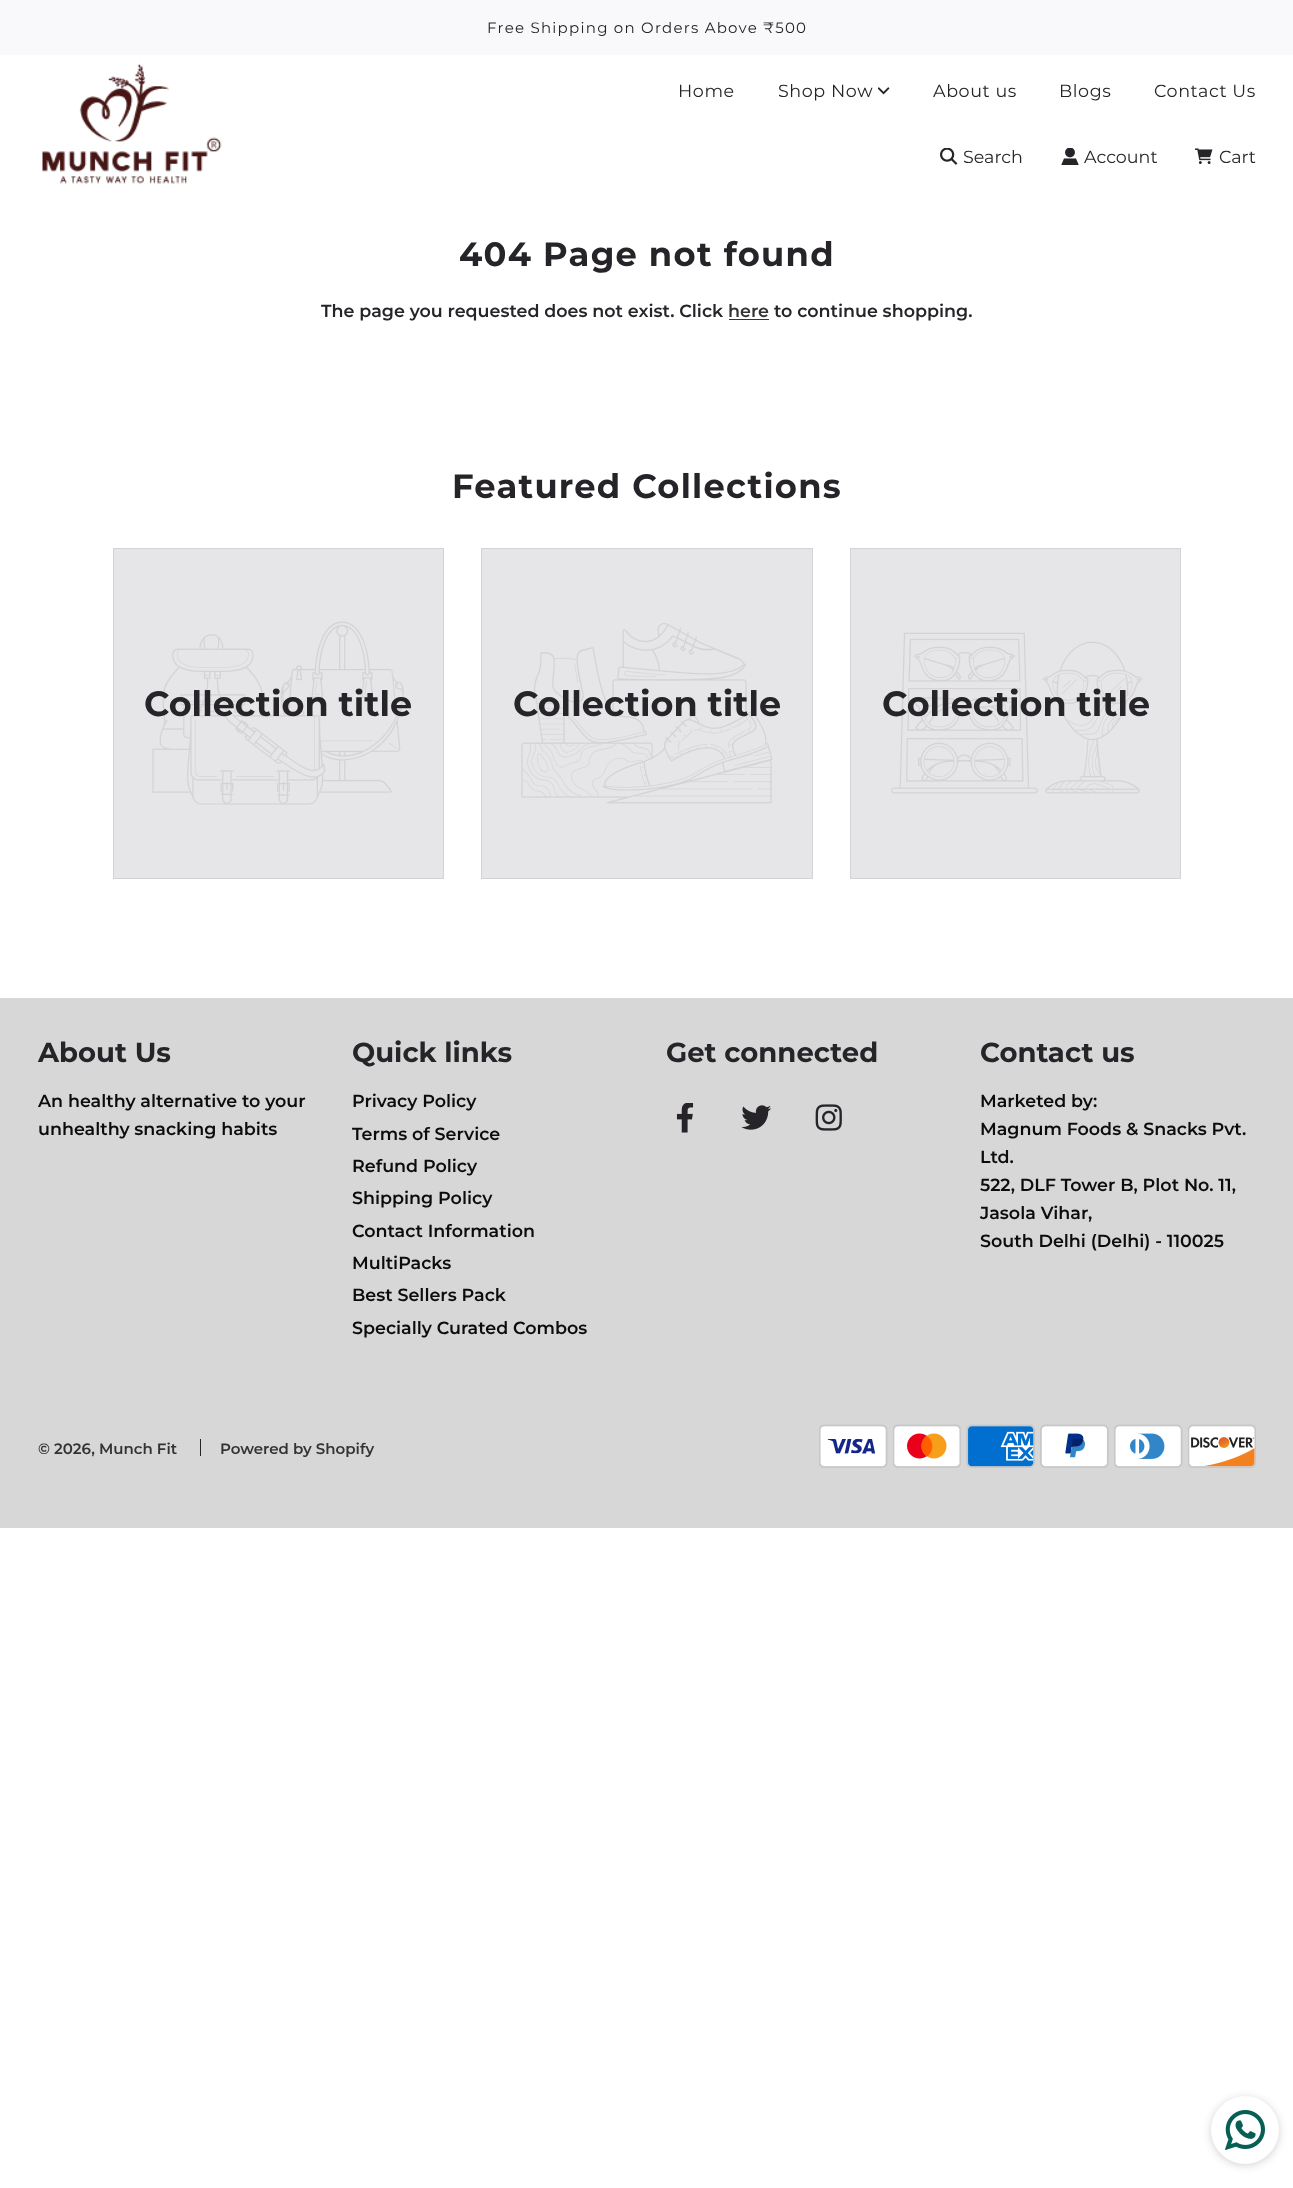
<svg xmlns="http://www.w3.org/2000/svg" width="1293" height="2188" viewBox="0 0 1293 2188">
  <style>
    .t1 { font: 15px Montserrat; letter-spacing: 1.25px; fill: #262428; }
    .t2 { font: 17.5px Montserrat; letter-spacing: 0.6px; fill: #262428; }
    .t3 { font: 17.5px Montserrat; fill: #262428; }
    .t4 { font: bold 33.75px Montserrat; letter-spacing: 1.25px; fill: #262428; }
    .t5 { font: 600 17.5px Montserrat; fill: #262428; }
    .t6 { font: 600 17.5px Montserrat; fill: #333; }
    .t7 { font: bold 35px Montserrat; fill: #262428; }
    .t8 { font: bold 27.5px Montserrat; fill: #262428; }
    .t9 { font: 600 17.5px Montserrat; fill: #0d0c0d; }
    .t10 { font: 600 15px Montserrat; fill: #333; }
  </style>
  <rect width="100%" height="100%" fill="#fff"/>
  <rect x="0" y="0" width="1293" height="55" fill="#f9f9fb"/>
  <text x="487" y="33" class="t1">Free Shipping on Orders Above ₹500</text>
  <image x="42" y="63" width="180" height="121" href="images/1.png"/>
  <text x="678" y="97" class="t2">Home</text>
  <text x="778" y="97" class="t2">Shop Now</text>
  <image x="878" y="87" width="12" height="8" href="images/2.png"/>
  <text x="933" y="97" class="t2">About us</text>
  <text x="1059" y="97" class="t2">Blogs</text>
  <text x="1154" y="97" class="t2">Contact Us</text>
  <image x="940" y="148" width="18" height="17" href="images/3.png"/>
  <text x="963" y="163" class="t3">Search</text>
  <image x="1061" y="148" width="18" height="17" href="images/4.png"/>
  <text x="1084" y="163" class="t3">Account</text>
  <image x="1195" y="148" width="18" height="16" href="images/5.png"/>
  <text x="1219" y="163" class="t3">Cart</text>
  <text x="459" y="266" class="t4">404 Page not found</text>
  <text x="321" y="317" class="t5">The page you requested does not exist. Click</text>
  <text x="728" y="317" class="t6">here</text>
  <rect x="729" y="319" width="40" height="1" fill="#333"/>
  <text x="774" y="317" class="t5">to continue shopping.</text>
  <text x="452" y="498" class="t4">Featured Collections</text>
  <rect x="113.5" y="548.5" width="330" height="330" fill="#e6e5e7" stroke="#d4d3d4"/>
  <image x="152" y="621" width="252" height="184" href="images/6.png"/>
  <text x="144" y="716" class="t7">Collection title</text>
  <rect x="481.5" y="548.5" width="331" height="330" fill="#e6e5e7" stroke="#d4d3d4"/>
  <image x="521" y="623" width="252" height="181" href="images/7.png"/>
  <text x="513" y="716" class="t7">Collection title</text>
  <rect x="850.5" y="548.5" width="330" height="330" fill="#e6e5e7" stroke="#d4d3d4"/>
  <image x="891" y="632" width="252" height="162" href="images/8.png"/>
  <text x="882" y="716" class="t7">Collection title</text>
  <rect x="0" y="998" width="1293" height="530" fill="#d7d7d7"/>
  <text x="38" y="1062" class="t8">About Us</text>
  <text x="38" y="1107" class="t9">An healthy alternative to your</text>
  <text x="38" y="1135" class="t9">unhealthy snacking habits</text>
  <text x="352" y="1062" class="t8">Quick links</text>
  <text x="352" y="1107" class="t9">Privacy Policy</text>
  <text x="352" y="1140" class="t9">Terms of Service</text>
  <text x="352" y="1172" class="t9">Refund Policy</text>
  <text x="352" y="1204" class="t9">Shipping Policy</text>
  <text x="352" y="1237" class="t9">Contact Information</text>
  <text x="352" y="1269" class="t9">MultiPacks</text>
  <text x="352" y="1301" class="t9">Best Sellers Pack</text>
  <text x="352" y="1334" class="t9">Specially Curated Combos</text>
  <text x="666" y="1062" class="t8">Get connected</text>
  <image x="676" y="1103" width="18" height="30" href="images/9.png"/>
  <image x="741" y="1105" width="31" height="25" href="images/10.png"/>
  <image x="815" y="1104" width="27" height="27" href="images/11.png"/>
  <text x="980" y="1062" class="t8">Contact us</text>
  <text x="980" y="1107" class="t9">Marketed by:</text>
  <text x="980" y="1135" class="t9">Magnum Foods &amp; Snacks Pvt.</text>
  <text x="980" y="1163" class="t9">Ltd.</text>
  <text x="980" y="1191" class="t9">522, DLF Tower B, Plot No. 11,</text>
  <text x="980" y="1219" class="t9">Jasola Vihar,</text>
  <text x="980" y="1247" class="t9">South Delhi (Delhi) - 110025</text>
  <text x="38" y="1454" class="t10">© 2026, Munch Fit</text>
  <rect x="200" y="1439" width="1" height="17" fill="#262428"/>
  <text x="220" y="1454" class="t10">Powered by Shopify</text>
  <image x="819" y="1424" width="69" height="44" href="images/12.png"/>
  <image x="893" y="1424" width="68" height="44" href="images/13.png"/>
  <image x="966" y="1424" width="69" height="44" href="images/14.png"/>
  <image x="1040" y="1424" width="69" height="44" href="images/15.png"/>
  <image x="1114" y="1424" width="69" height="44" href="images/16.png"/>
  <image x="1188" y="1424" width="68" height="44" href="images/17.png"/>
  <rect x="1211" y="2098" width="68" height="67" rx="33.5" fill="#1b1b1b33" filter="blur(4px)"/>
  <circle cx="1245" cy="2130" r="33.5" fill="#fff" stroke="#fff"/>
  <image x="1225" y="2110" width="40" height="40" href="images/18.png"/>
</svg>
